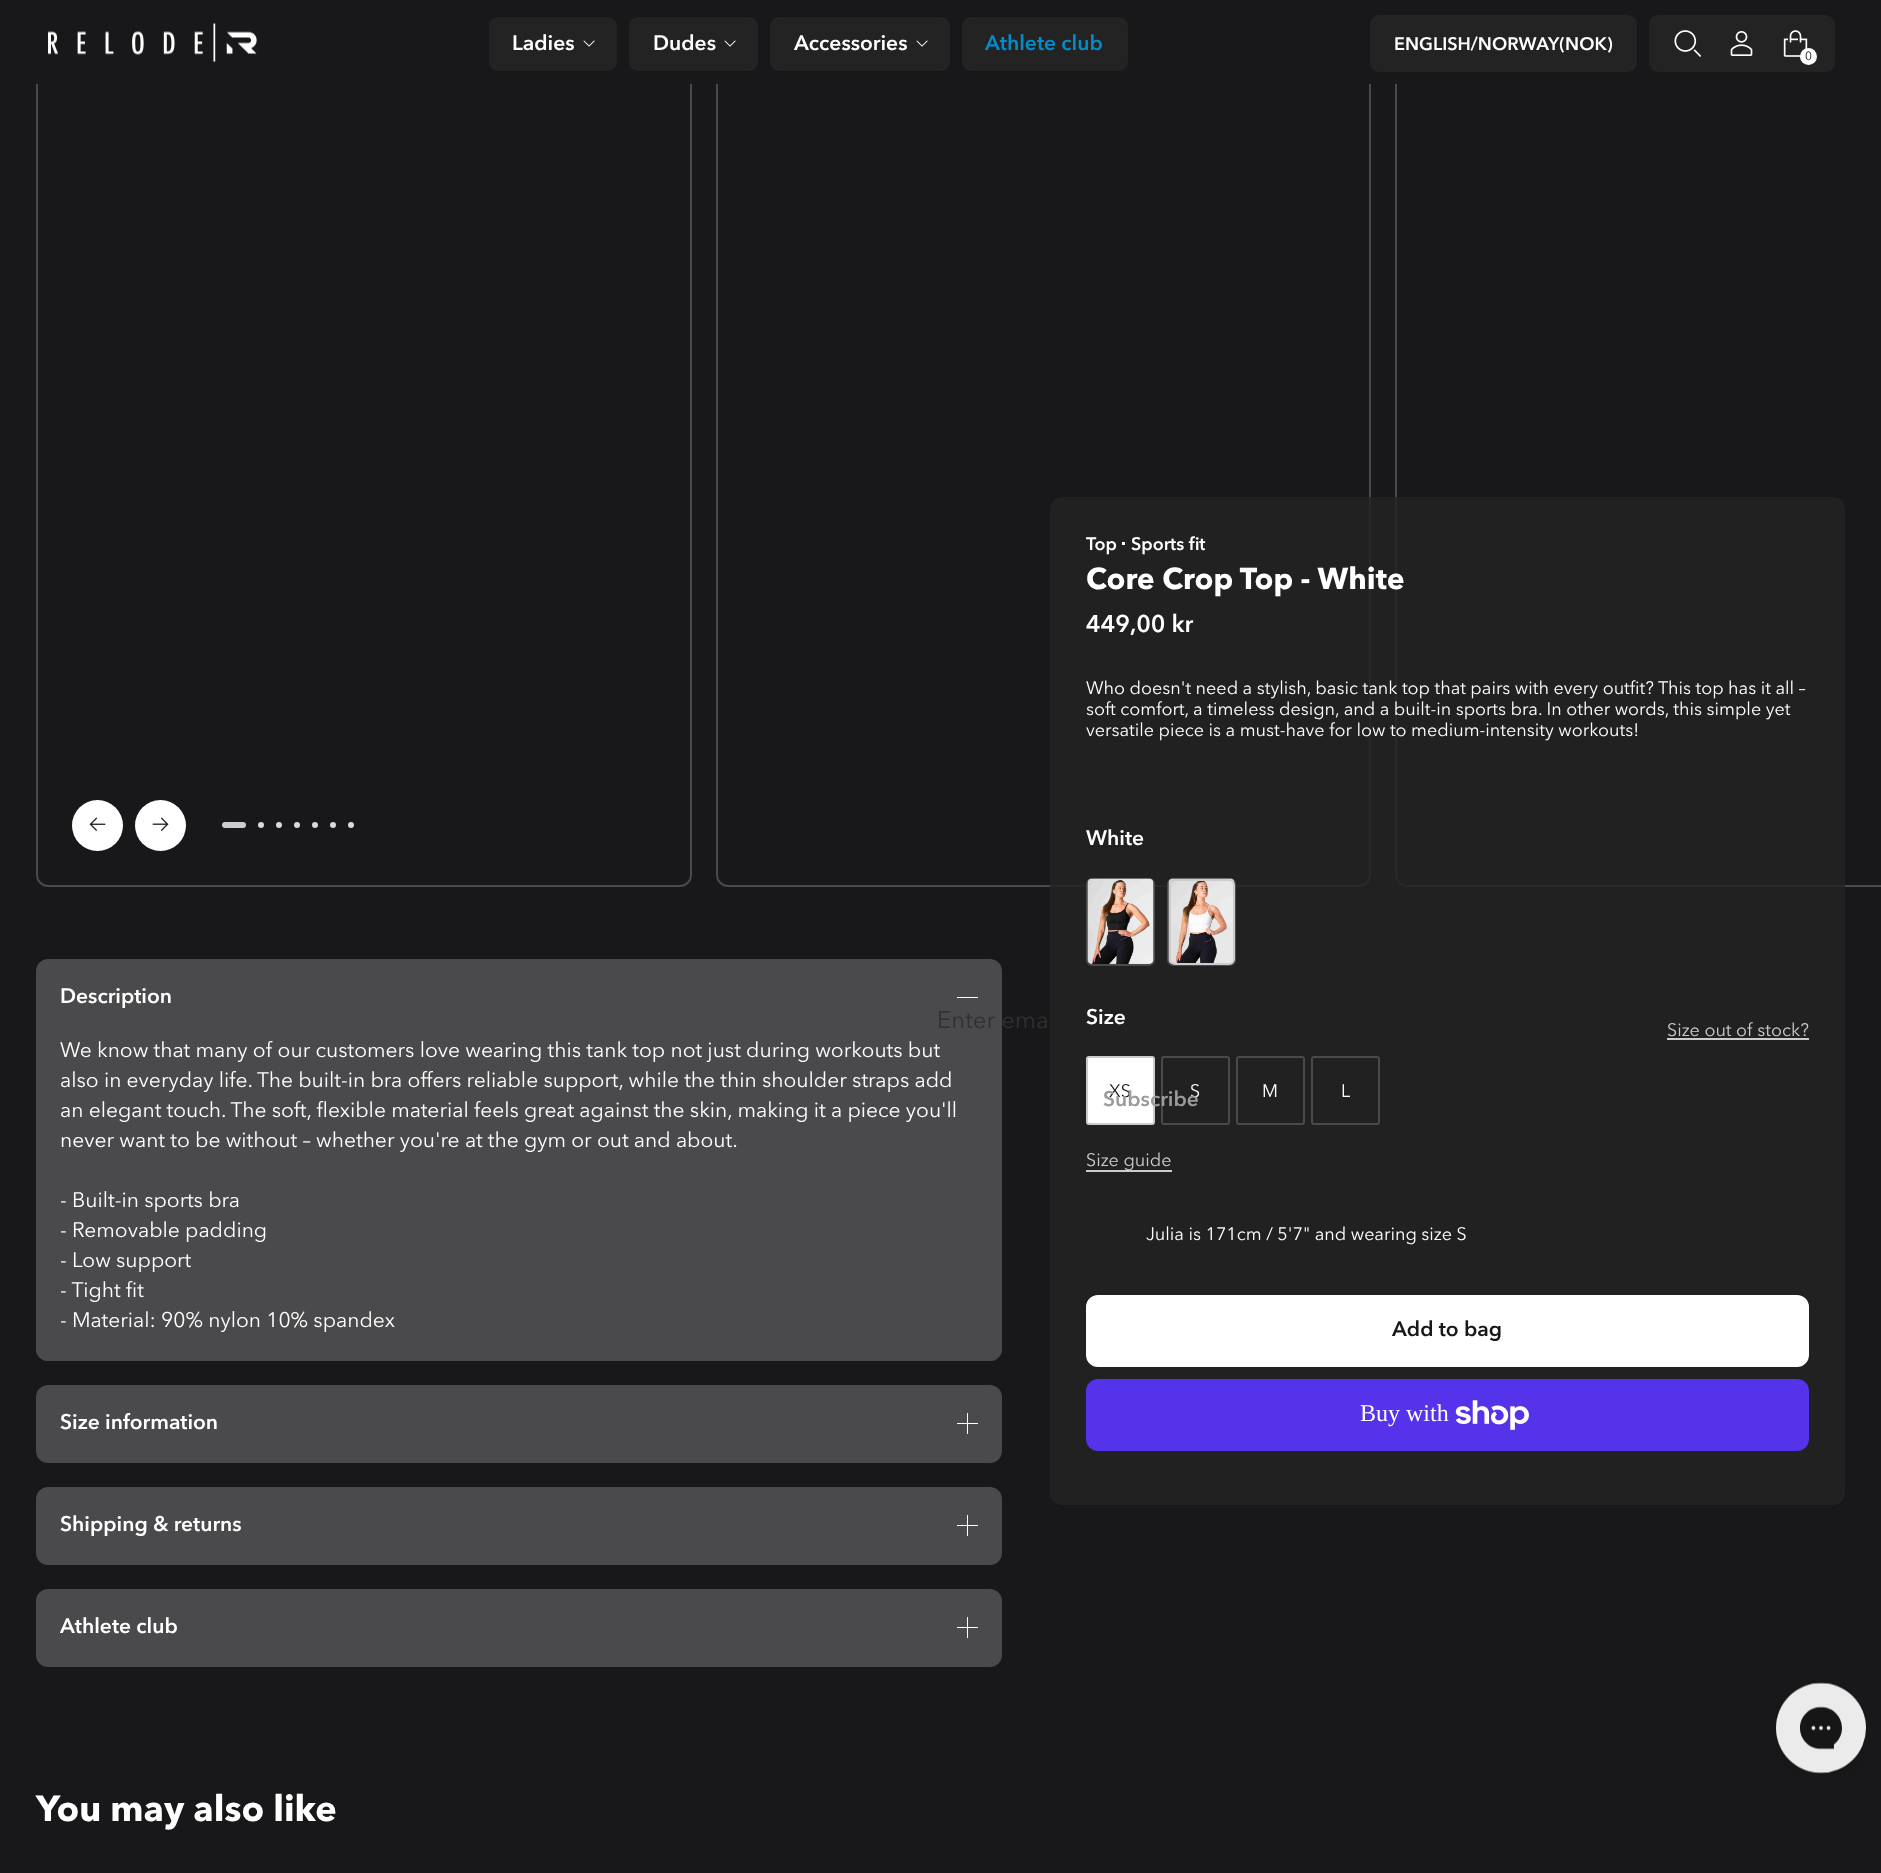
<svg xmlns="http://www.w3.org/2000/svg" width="1881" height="1873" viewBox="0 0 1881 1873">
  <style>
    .t1 { font: 600 21px Avenir Next; fill: #fff; }
    .t2 { font: 600 21px Avenir Next; fill: #048bc9; }
    .t3 { font: 600 18px Avenir Next; fill: #fff; }
    .t4 { font: 12px Avenir Next; fill: #181719; }
    .t5 { font: 21px Avenir Next; fill: #fff; }
    .t6 { font: bold 30px Avenir Next; fill: #fff; }
    .t7 { font: 600 24px Avenir Next; fill: #fff; }
    .t8 { font: 18px Avenir Next; fill: #fff; }
    .t9 { font: 18px Avenir Next; fill: #ccc; }
    .t10 { font: 18px Avenir Next; fill: #181719; }
    .t11 { font: 600 21px Avenir Next; fill: #181719; }
    .t12 { font: 24px Liberation Serif; fill: #fff; }
    .t13 { font: 24px Avenir Next; fill: #313032; }
    .t14 { font: 600 21px Avenir Next; fill: #9b9b9c; }
    .t15 { font: bold 36px Avenir Next; fill: #fff; }
  </style>
  <rect width="100%" height="100%" fill="#181719"/>
  <rect x="37" y="69" width="654" height="817" rx="11" fill="none" stroke="#4a494b" stroke-width="2"/>
  <rect x="717" y="69" width="653" height="817" rx="11" fill="none" stroke="#4a494b" stroke-width="2"/>
  <rect x="1396" y="69" width="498" height="817" rx="11" fill="none" stroke="#4a494b" stroke-width="2"/>
  <rect x="36" y="68" width="1845" height="16" fill="#181719"/>
  <image x="48" y="23" width="209" height="40" href="images/1.png"/>
  <rect x="489" y="17" width="128" height="54" rx="9" fill="#232323"/>
  <text x="512" y="50" class="t1">Ladies</text>
  <image x="583" y="40" width="12" height="7" href="images/2.png"/>
  <rect x="629" y="17" width="129" height="54" rx="9" fill="#232323"/>
  <text x="653" y="50" class="t1">Dudes</text>
  <image x="724" y="40" width="12" height="7" href="images/2.png"/>
  <rect x="770" y="17" width="180" height="54" rx="9" fill="#232323"/>
  <text x="794" y="50" class="t1">Accessories</text>
  <image x="916" y="40" width="12" height="7" href="images/2.png"/>
  <rect x="962" y="17" width="166" height="54" rx="9" fill="#232323"/>
  <text x="985" y="50" class="t2">Athlete club</text>
  <rect x="1370" y="15" width="267" height="57" rx="9" fill="#232323"/>
  <text x="1394" y="50" class="t3">ENGLISH/NORWAY(NOK)</text>
  <rect x="1649" y="15" width="186" height="57" rx="9" fill="#232323"/>
  <image x="1674" y="30" width="27" height="27" href="images/3.png"/>
  <image x="1730" y="31" width="23" height="25" href="images/4.png"/>
  <image x="1783" y="30" width="25" height="27" href="images/5.png"/>
  <circle cx="1808.5" cy="56.5" r="8.5" fill="#fff"/>
  <text x="1805" y="60" class="t4">0</text>
  <circle cx="97.5" cy="825.5" r="25.5" fill="#fff"/>
  <image x="89" y="817" width="17" height="14" href="images/6.png"/>
  <circle cx="160.5" cy="825.5" r="25.5" fill="#fff"/>
  <image x="152" y="817" width="17" height="14" href="images/7.png"/>
  <rect x="222" y="822" width="24" height="6" rx="3" fill="#ccc"/>
  <circle cx="261" cy="825" r="3" fill="#dadada"/>
  <circle cx="279" cy="825" r="3" fill="#dadada"/>
  <circle cx="297" cy="825" r="3" fill="#dadada"/>
  <circle cx="315" cy="825" r="3" fill="#dadada"/>
  <circle cx="333" cy="825" r="3" fill="#dadada"/>
  <circle cx="351" cy="825" r="3" fill="#dadada"/>
  <rect x="36" y="959" width="966" height="402" rx="12" fill="#4a494b"/>
  <text x="60" y="1003" class="t1">Description</text>
  <rect x="957" y="997" width="21" height="1" fill="#fff"/>
  <path d="M36 1037H1002V1349C1002 1355.5 996.5 1361 990 1361H48C41.5 1361 36 1355.5 36 1349Z" fill="#4a494b"/>
  <text x="60" y="1057" class="t5">We know that many of our customers love wearing this tank top not just during workouts but</text>
  <text x="60" y="1087" class="t5">also in everyday life. The built-in bra offers reliable support, while the thin shoulder straps add</text>
  <text x="60" y="1117" class="t5">an elegant touch. The soft, flexible material feels great against the skin, making it a piece you'll</text>
  <text x="60" y="1147" class="t5">never want to be without – whether you're at the gym or out and about.</text>
  <text x="60" y="1207" class="t5">- Built-in sports bra</text>
  <text x="60" y="1237" class="t5">- Removable padding</text>
  <text x="60" y="1267" class="t5">- Low support</text>
  <text x="60" y="1297" class="t5">- Tight fit</text>
  <text x="60" y="1327" class="t5">- Material: 90% nylon 10% spandex</text>
  <rect x="36" y="1385" width="966" height="78" rx="12" fill="#4a494b"/>
  <text x="60" y="1429" class="t1">Size information</text>
  <rect x="967" y="1413" width="1" height="21" fill="#fff"/>
  <rect x="957" y="1423" width="21" height="1" fill="#fff"/>
  <rect x="36" y="1487" width="966" height="78" rx="12" fill="#4a494b"/>
  <text x="60" y="1531" class="t1">Shipping &amp; returns</text>
  <rect x="967" y="1515" width="1" height="21" fill="#fff"/>
  <rect x="957" y="1525" width="21" height="1" fill="#fff"/>
  <rect x="36" y="1589" width="966" height="78" rx="12" fill="#4a494b"/>
  <text x="60" y="1633" class="t1">Athlete club</text>
  <rect x="967" y="1617" width="1" height="21" fill="#fff"/>
  <rect x="957" y="1627" width="21" height="1" fill="#fff"/>
  <rect x="1050" y="497" width="795" height="1008" rx="12" fill="#232323d9"/>
  <text x="1086" y="550" class="t3">Top</text>
  <rect x="1122" y="542" width="3" height="3" fill="#fff"/>
  <text x="1131" y="550" class="t3">Sports fit</text>
  <text x="1086" y="589" class="t6">Core Crop Top - White</text>
  <text x="1086" y="632" class="t7">449,00 kr</text>
  <text x="1086" y="694" class="t8">Who doesn't need a stylish, basic tank top that pairs with every outfit? This top has it all –</text>
  <text x="1086" y="715" class="t8">soft comfort, a timeless design, and a built-in sports bra. In other words, this simple yet</text>
  <text x="1086" y="736" class="t8">versatile piece is a must-have for low to medium-intensity workouts!</text>
  <text x="1086" y="845" class="t1">White</text>
  <rect x="1087" y="879" width="67" height="86" rx="5" fill="none" stroke="#4a494b" stroke-width="2"/>
  <image x="1087" y="878" width="67" height="86" href="images/8.png"/>
  <rect x="1168" y="879" width="67" height="86" rx="5" fill="none" stroke="#4a494b" stroke-width="2"/>
  <image x="1168" y="878" width="67" height="86" href="images/9.png"/>
  <rect x="1170" y="880" width="64" height="84" rx="5" fill="none" stroke="#ccc" stroke-width="2"/>
  <text x="1086" y="1024" class="t1">Size</text>
  <text x="1667" y="1036" class="t9">Size out of stock?</text>
  <rect x="1667" y="1038" width="142" height="2" fill="#ccc"/>
  <rect x="1087" y="1057" width="67" height="67" rx="2" fill="#fff" stroke="#ccc" stroke-width="2"/>
  <text x="1109" y="1097" class="t10">XS</text>
  <rect x="1162" y="1057" width="67" height="67" rx="2" fill="none" stroke="#4a494b" stroke-width="2"/>
  <text x="1190" y="1097" class="t8">S</text>
  <rect x="1237" y="1057" width="67" height="67" rx="2" fill="none" stroke="#4a494b" stroke-width="2"/>
  <text x="1262" y="1097" class="t8">M</text>
  <rect x="1312" y="1057" width="67" height="67" rx="2" fill="none" stroke="#4a494b" stroke-width="2"/>
  <text x="1341" y="1097" class="t8">L</text>
  <text x="1086" y="1166" class="t9">Size guide</text>
  <rect x="1086" y="1170" width="86" height="2" fill="#ccc"/>
  <text x="1146" y="1240" class="t8">Julia is 171cm / 5'7" and wearing size S</text>
  <rect x="1087" y="1296" width="721" height="70" rx="11" fill="#fff" stroke="#fff" stroke-width="2"/>
  <text x="1392" y="1336" class="t11">Add to bag</text>
  <rect x="1086" y="1379" width="723" height="72" rx="12" fill="#5433eb"/>
  <text x="1360" y="1421" class="t12">Buy with</text>
  <image x="1455" y="1400" width="74" height="30" href="images/10.png"/>
  <text x="937" y="1028" class="t13">Enter ema</text>
  <text x="1103" y="1106" class="t14">Subscribe</text>
  <text x="36" y="1821" class="t15">You may also like</text>
  <image x="1776" y="1682" width="90" height="92" href="images/11.png"/>
</svg>
